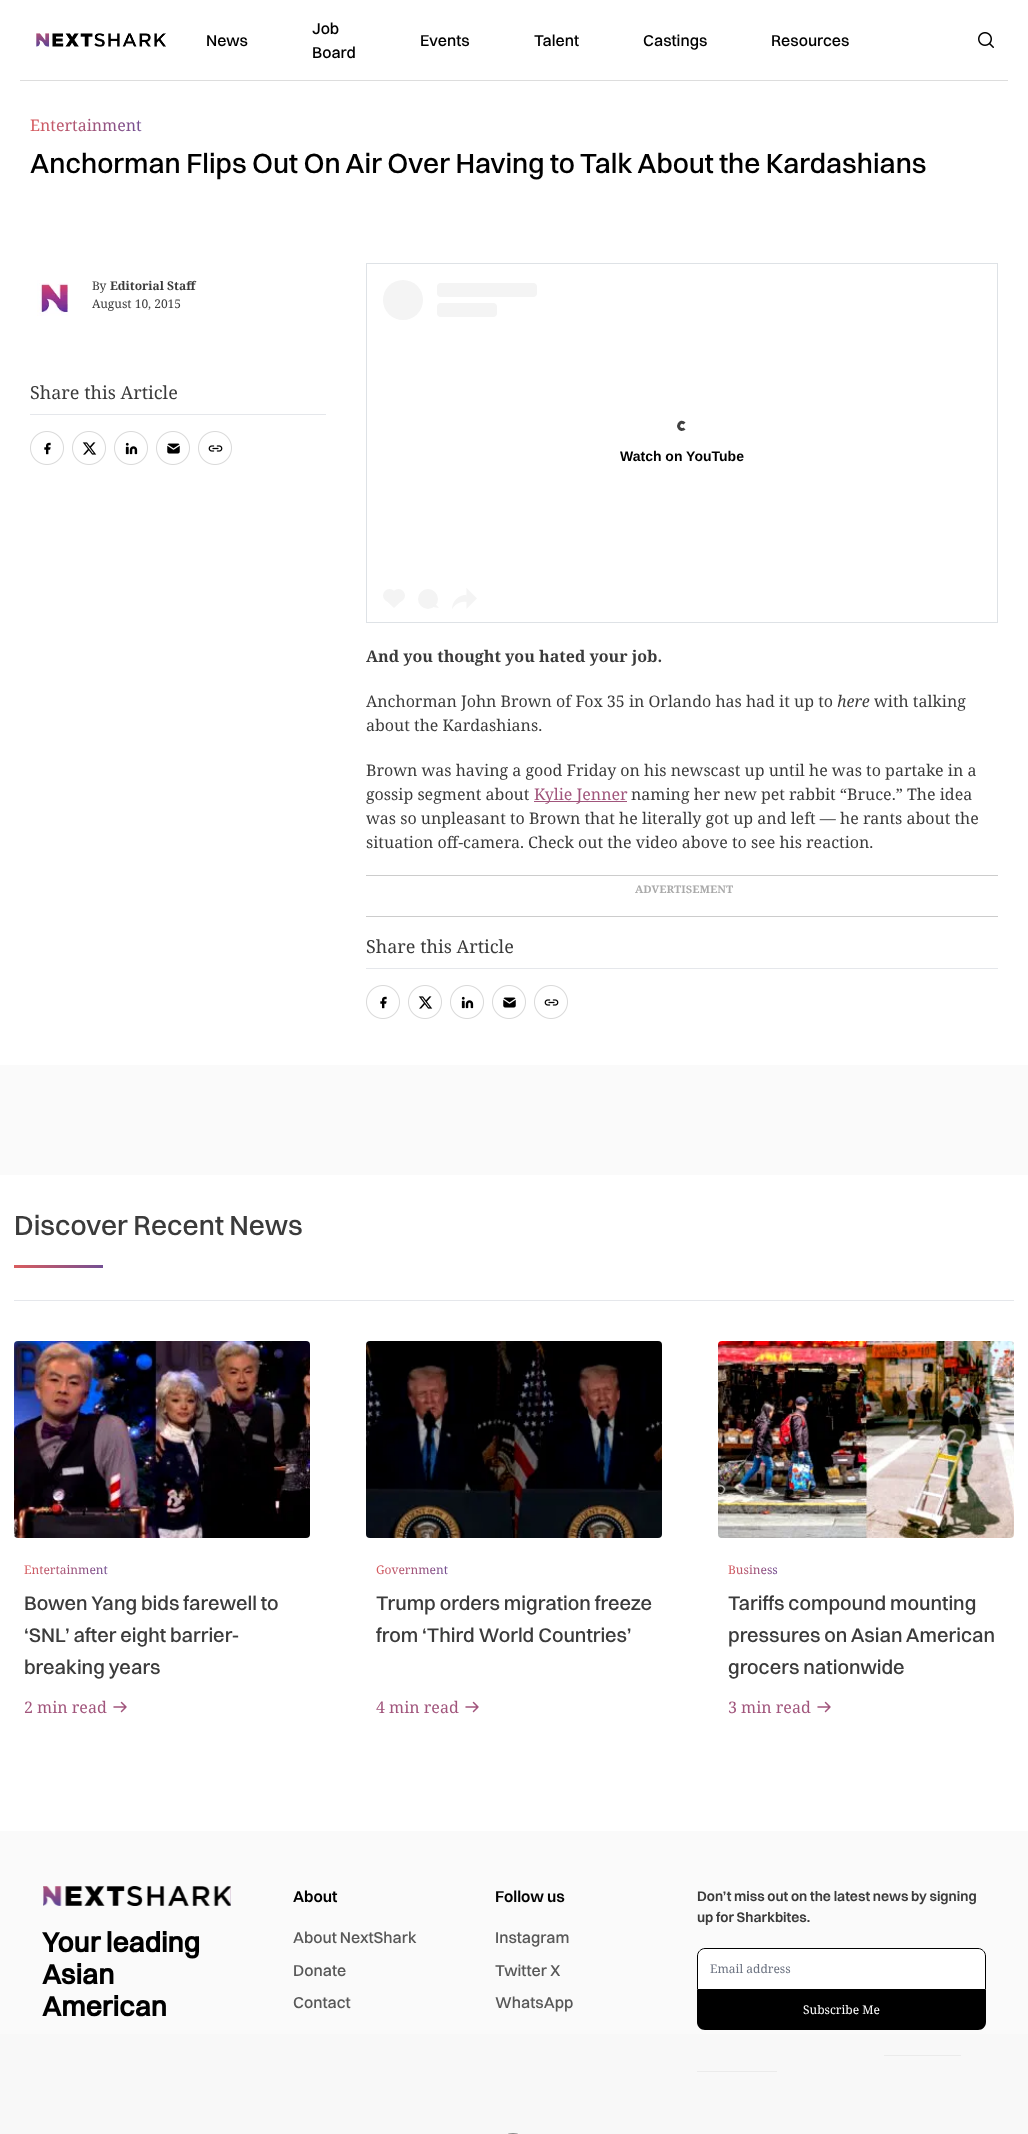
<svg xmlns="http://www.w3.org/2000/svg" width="1028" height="2134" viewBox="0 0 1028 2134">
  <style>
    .t1 { font: 500 16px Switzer; fill: #000; }
    .t2 { font: 16px Noto Serif; fill: url(#g1); }
    .t3 { font: 500 28px Switzer; fill: #000; }
    .t4 { font: 12px Noto Serif; fill: #3b3b3b; }
    .t5 { font: bold 12px Noto Serif; fill: #3b3b3b; }
    .t6 { font: 18px Noto Serif; fill: #3b3b3b; }
    .t7 { font: bold 14px Liberation Sans; fill: #000; }
    .t8 { font: bold 16px Noto Serif; fill: #3b3b3b; }
    .t9 { font: 16px Noto Serif; fill: #3b3b3b; }
    .t10 { font: italic 16px Noto Serif; fill: #3b3b3b; }
    .t11 { font: 16px Noto Serif; fill: #a1557c; }
    .t12 { font: 600 13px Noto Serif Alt; fill: #aaa; }
    .t13 { font: 500 28px Switzer; fill: #3b3b3b; }
    .t14 { font: 12px Noto Serif; fill: url(#g2); }
    .t15 { font: 500 20px Switzer; fill: #3b3b3b; }
    .t16 { font: 12px Noto Serif; fill: url(#g3); }
    .t17 { font: 12px Noto Serif; fill: url(#g4); }
    .t18 { font: bold 28px Switzer; fill: #000; }
    .t19 { font: 600 16px Switzer; fill: #000; }
    .t20 { font: 500 16px Switzer; fill: #585858; }
    .t21 { font: 600 14px Switzer; fill: #3b3b3b; }
    .t22 { font: 12px Noto Serif; fill: #6b7280; }
    .t23 { font: 12px Noto Serif; fill: #fff; }
  </style>
  <defs>
    <linearGradient id="g1" gradientUnits="userSpaceOnUse" x1="30" y1="125" x2="142" y2="125"><stop offset="0" stop-color="#d95c5e"/><stop offset="1" stop-color="#734f93"/></linearGradient>
    <linearGradient id="g2" gradientUnits="userSpaceOnUse" x1="24" y1="1570" x2="108" y2="1570"><stop offset="0" stop-color="#d95c5e"/><stop offset="1" stop-color="#734f93"/></linearGradient>
    <linearGradient id="g3" gradientUnits="userSpaceOnUse" x1="376" y1="1570" x2="448" y2="1570"><stop offset="0" stop-color="#d95c5e"/><stop offset="1" stop-color="#734f93"/></linearGradient>
    <linearGradient id="g4" gradientUnits="userSpaceOnUse" x1="728" y1="1570" x2="778" y2="1570"><stop offset="0" stop-color="#d95c5e"/><stop offset="1" stop-color="#734f93"/></linearGradient>
    <linearGradient id="g5" gradientUnits="userSpaceOnUse" x1="14" y1="1267" x2="103" y2="1267"><stop offset="0" stop-color="#d95c5e"/><stop offset="1" stop-color="#734f93"/></linearGradient>
  </defs>
  <rect width="100%" height="100%" fill="#fff"/>
  <rect x="20" y="80" width="988" height="1" fill="#ddd"/>
  <image x="36" y="33" width="130" height="14" href="images/1.png"/>
  <text x="206" y="46" class="t1">News</text>
  <text x="312" y="34" class="t1">Job</text>
  <text x="312" y="58" class="t1">Board</text>
  <text x="420" y="46" class="t1">Events</text>
  <text x="534" y="46" class="t1">Talent</text>
  <text x="643" y="46" class="t1">Castings</text>
  <text x="771" y="46" class="t1">Resources</text>
  <image x="978" y="32" width="16" height="16" href="images/2.png"/>
  <text x="30" y="131" class="t2">Entertainment</text>
  <text x="30" y="173" class="t3">Anchorman Flips Out On Air Over Having to Talk About the Kardashians</text>
  <image x="37" y="280" width="32" height="36" href="images/3.png"/>
  <text x="92" y="290" class="t4">By</text>
  <text x="110" y="290" class="t5">Editorial Staff</text>
  <text x="92" y="308" class="t4">August 10, 2015</text>
  <rect x="30" y="414" width="296" height="1" fill="#e5e7eb"/>
  <text x="30" y="399" class="t6">Share this Article</text>
  <image x="30" y="431" width="34" height="34" href="images/4.png"/>
  <image x="72" y="431" width="34" height="34" href="images/5.png"/>
  <image x="114" y="431" width="34" height="34" href="images/6.png"/>
  <image x="156" y="431" width="34" height="34" href="images/7.png"/>
  <image x="198" y="431" width="34" height="34" href="images/8.png"/>
  <rect x="366.5" y="263.5" width="631" height="359" fill="none" stroke="#dee2e6"/>
  <circle cx="403" cy="300" r="20" fill="#f4f4f4"/>
  <rect x="437" y="283" width="100" height="14" rx="4" fill="#f4f4f4"/>
  <rect x="437" y="303" width="60" height="14" rx="4" fill="#f4f4f4"/>
  <path d="M684.5 428.5C683.5 429.5 682.5 429.5 681.5 429.5C675.5 428 680 419 684.5 423.5" fill="none" stroke="#404040" stroke-width="3"/>
  <text x="620" y="461" class="t7">Watch on YouTube</text>
  <circle cx="389.5" cy="595.5" r="6.5" fill="#f4f4f4"/>
  <path d="M385 599.5L394 590.5L403 599.5L394 608Z" fill="#f4f4f4"/>
  <circle cx="398.5" cy="595.5" r="6.5" fill="#f4f4f4"/>
  <circle cx="428" cy="599" r="10" fill="#f4f4f4"/>
  <path d="M433 607L435 603.5L439 608Z" fill="#f4f4f4"/>
  <image x="452" y="588" width="25" height="21" href="images/9.png"/>
  <text x="366" y="662" class="t8">And you thought you hated your job.</text>
  <text x="366" y="707" class="t9">Anchorman John Brown of Fox 35 in Orlando has had it up to</text>
  <text x="837" y="707" class="t10">here</text>
  <text x="874" y="707" class="t9">with talking</text>
  <text x="366" y="731" class="t9">about the Kardashians.</text>
  <text x="366" y="776" class="t9">Brown was having a good Friday on his newscast up until he was to partake in a</text>
  <text x="366" y="800" class="t9">gossip segment about</text>
  <rect x="534" y="801" width="93" height="1" fill="#a1557c"/>
  <text x="534" y="800" class="t11">Kylie Jenner</text>
  <text x="631" y="800" class="t9">naming her new pet rabbit “Bruce.” The idea</text>
  <text x="366" y="824" class="t9">was so unpleasant to Brown that he literally got up and left — he rants about the</text>
  <text x="366" y="848" class="t9">situation off-camera. Check out the video above to see his reaction.</text>
  <rect x="366" y="875" width="632" height="1" fill="#ccc"/>
  <rect x="366" y="916" width="632" height="1" fill="#ccc"/>
  <text x="635" y="893" class="t12">advertisement</text>
  <rect x="366" y="968" width="632" height="1" fill="#e5e7eb"/>
  <text x="366" y="953" class="t6">Share this Article</text>
  <image x="366" y="985" width="34" height="34" href="images/4.png"/>
  <image x="408" y="985" width="34" height="34" href="images/5.png"/>
  <image x="450" y="985" width="34" height="34" href="images/6.png"/>
  <image x="492" y="985" width="34" height="34" href="images/7.png"/>
  <image x="534" y="985" width="34" height="34" href="images/8.png"/>
  <rect x="0" y="1065" width="1028" height="110" fill="#fafafa"/>
  <rect x="14" y="1300" width="1000" height="1" fill="#e5e7eb"/>
  <text x="14" y="1235" class="t13">Discover Recent News</text>
  <rect x="14" y="1265" width="89" height="3" fill="url(#g5)"/>
  <image x="14" y="1341" width="296" height="197" href="images/10.png"/>
  <text x="24" y="1574" class="t14">Entertainment</text>
  <text x="24" y="1610" class="t15">Bowen Yang bids farewell to</text>
  <text x="24" y="1642" class="t15">‘SNL’ after eight barrier-</text>
  <text x="24" y="1674" class="t15">breaking years</text>
  <text x="24" y="1713" class="t11">2 min read</text>
  <path d="M126 1707H114M126 1707L121.5 1711.5M126 1707L121.5 1702.5" fill="none" stroke="#a1557c" stroke-width="1.5" stroke-linecap="round" stroke-linejoin="round"/>
  <image x="366" y="1341" width="296" height="197" href="images/11.png"/>
  <text x="376" y="1574" class="t16">Government</text>
  <text x="376" y="1610" class="t15">Trump orders migration freeze</text>
  <text x="376" y="1642" class="t15">from ‘Third World Countries’</text>
  <text x="376" y="1713" class="t11">4 min read</text>
  <path d="M478 1707H466M478 1707L473.5 1711.5M478 1707L473.5 1702.5" fill="none" stroke="#a1557c" stroke-width="1.5" stroke-linecap="round" stroke-linejoin="round"/>
  <image x="718" y="1341" width="296" height="197" href="images/12.png"/>
  <text x="728" y="1574" class="t17">Business</text>
  <text x="728" y="1610" class="t15">Tariffs compound mounting</text>
  <text x="728" y="1642" class="t15">pressures on Asian American</text>
  <text x="728" y="1674" class="t15">grocers nationwide</text>
  <text x="728" y="1713" class="t11">3 min read</text>
  <path d="M830 1707H818M830 1707L825.5 1711.5M830 1707L825.5 1702.5" fill="none" stroke="#a1557c" stroke-width="1.5" stroke-linecap="round" stroke-linejoin="round"/>
  <rect x="0" y="1831" width="1028" height="303" fill="#fafafa"/>
  <image x="43" y="1886" width="188" height="20" href="images/13.png"/>
  <text x="42" y="1952" class="t18">Your leading</text>
  <text x="42" y="1984" class="t18">Asian</text>
  <text x="42" y="2016" class="t18">American</text>
  <text x="293" y="1902" class="t19">About</text>
  <text x="293" y="1943" class="t20">About NextShark</text>
  <text x="293" y="1976" class="t20">Donate</text>
  <text x="293" y="2008" class="t20">Contact</text>
  <text x="495" y="1902" class="t19">Follow us</text>
  <text x="495" y="1943" class="t20">Instagram</text>
  <text x="495" y="1976" class="t20">Twitter X</text>
  <text x="495" y="2008" class="t20">WhatsApp</text>
  <text x="697" y="1901" class="t21">Don’t miss out on the latest news by signing</text>
  <text x="697" y="1922" class="t21">up for Sharkbites.</text>
  <path d="M705 1948.5H978C982 1948.5 985.5 1952 985.5 1956V1989.5H697.5V1956C697.5 1952 701 1948.5 705 1948.5Z" fill="#fff" stroke="#000"/>
  <text x="710" y="1973" class="t22">Email address</text>
  <path d="M697 1990H986V2022C986 2026.5 982.5 2030 978 2030H705C700.5 2030 697 2026.5 697 2022Z" fill="#000"/>
  <text x="803" y="2014" class="t23">Subscribe Me</text>
  <rect x="884" y="2055" width="77" height="1" fill="#797979"/>
  <rect x="697" y="2071" width="80" height="1" fill="#797979"/>
  <rect x="0" y="2034" width="1028" height="100" fill="#f7f7f7e6"/>
  <rect x="502.5" y="2133.5" width="21" height="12" rx="10.5" fill="none" stroke="#888"/>
</svg>
